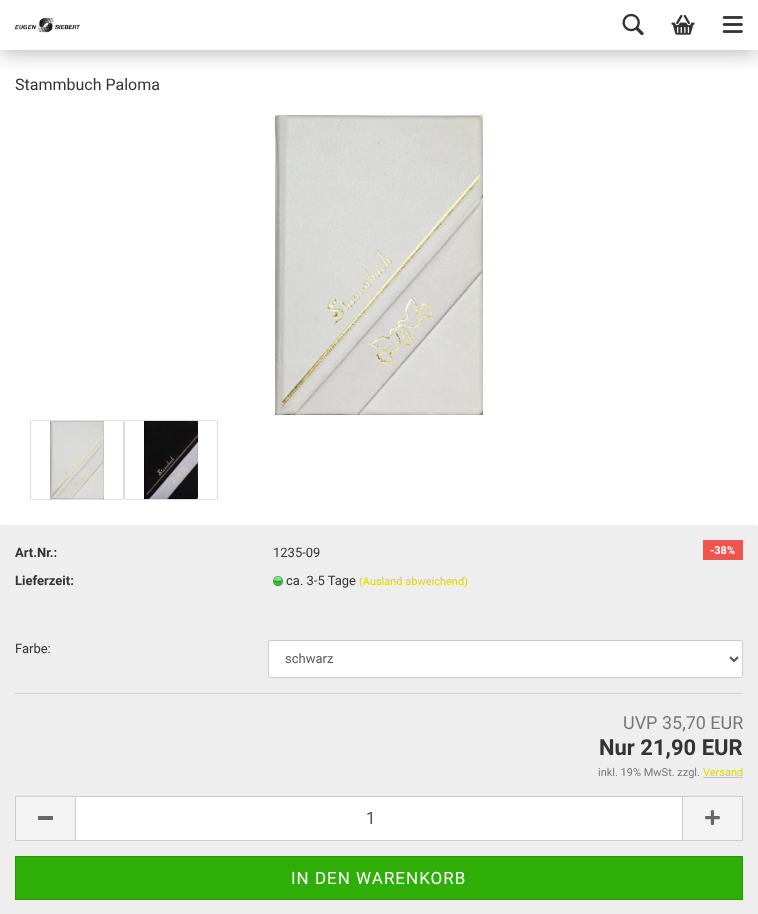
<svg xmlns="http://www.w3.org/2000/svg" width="758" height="914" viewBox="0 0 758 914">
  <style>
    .t1 { font: 16px Roboto; fill: #333; }
    .t2 { font: bold 11px Roboto; fill: #fff; }
    .t3 { font: bold 13px Roboto; fill: #333; }
    .t4 { font: 13px Roboto; fill: #333; }
    .t5 { font: 11px Roboto; fill: #e3d111; }
    .t6 { font: 13px Roboto; fill: #555; }
    .t7 { font: 18px Roboto; fill: #777; }
    .t8 { font: bold 22px Roboto; fill: #333; }
    .t9 { font: 11px Roboto; fill: #777; }
    .t10 { font: 17px Roboto; fill: #555; }
    .t11 { font: 17px Roboto; letter-spacing: 1px; fill: #fff; }
  </style>
  <defs>
    <clipPath id="clip1"><rect x="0" y="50" width="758" height="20"/></clipPath>
  </defs>
  <rect width="100%" height="100%" fill="#fff"/>
  <g clip-path="url(#clip1)">
    <rect x="0" y="0" width="758" height="50" fill="#00000059" filter="blur(12.5px)"/>
  </g>
  <image x="15" y="17" width="65" height="16" href="images/1.png"/>
  <image x="622" y="13" width="22" height="22" href="images/2.png"/>
  <image x="671" y="14" width="24" height="21" href="images/3.png"/>
  <image x="722" y="16" width="21" height="17" href="images/4.png"/>
  <text x="15" y="90" class="t1">Stammbuch Paloma</text>
  <image x="275" y="115" width="208" height="300" href="images/5.png"/>
  <rect x="30.5" y="420.5" width="93" height="79" rx="1.5" fill="none" stroke="#ddd"/>
  <image x="50" y="421" width="54" height="78" href="images/6.png"/>
  <rect x="124.5" y="420.5" width="93" height="79" rx="1.5" fill="none" stroke="#ddd"/>
  <image x="144" y="421" width="54" height="78" href="images/7.png"/>
  <rect x="0" y="525" width="758" height="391" rx="2" fill="#eee"/>
  <rect x="703" y="540" width="40" height="20" fill="#f1544d"/>
  <text x="710" y="554" class="t2">-38%</text>
  <text x="15" y="557" class="t3">Art.Nr.:</text>
  <text x="273" y="557" class="t4">1235-09</text>
  <text x="15" y="585" class="t3">Lieferzeit:</text>
  <image x="273" y="576" width="10" height="10" href="images/8.png"/>
  <text x="286" y="585" class="t4">ca. 3-5 Tage</text>
  <text x="359" y="585" class="t5">(Ausland abweichend)</text>
  <rect x="15" y="693" width="728" height="1" fill="#d5d5d5"/>
  <text x="15" y="653" class="t4">Farbe:</text>
  <rect x="268.5" y="640.5" width="474" height="37" rx="1.5" fill="#fff" stroke="#ccc"/>
  <path d="M730 657L734 661L738 657" fill="none" stroke="#555" stroke-width="2"/>
  <text x="285" y="663" class="t6">schwarz</text>
  <text x="623" y="729" class="t7">UVP 35,70 EUR</text>
  <text x="599" y="755" class="t8">Nur 21,90 EUR</text>
  <text x="598" y="776" class="t9">inkl. 19% MwSt. zzgl.</text>
  <text x="703" y="776" class="t5">Versand</text>
  <rect x="703" y="777" width="40" height="1" fill="#e3d111"/>
  <rect x="16" y="797" width="59" height="43" fill="#f3f3f3"/>
  <rect x="15" y="796" width="60" height="1" fill="#ccc"/>
  <rect x="15" y="840" width="60" height="1" fill="#ccc"/>
  <rect x="15" y="796" width="1" height="45" fill="#ccc"/>
  <rect x="38" y="816" width="15" height="4" fill="#666"/>
  <rect x="75.5" y="796.5" width="607" height="44" fill="#fff" stroke="#ccc"/>
  <text x="366" y="824" class="t10">1</text>
  <rect x="683" y="797" width="59" height="43" fill="#f3f3f3"/>
  <rect x="683" y="796" width="60" height="1" fill="#ccc"/>
  <rect x="742" y="796" width="1" height="45" fill="#ccc"/>
  <rect x="683" y="840" width="60" height="1" fill="#ccc"/>
  <image x="705" y="810" width="15" height="16" href="images/9.png"/>
  <rect x="15.5" y="856.5" width="727" height="43" fill="#2eae06" stroke="#279505"/>
  <text x="291" y="884" class="t11">IN DEN WARENKORB</text>
</svg>
